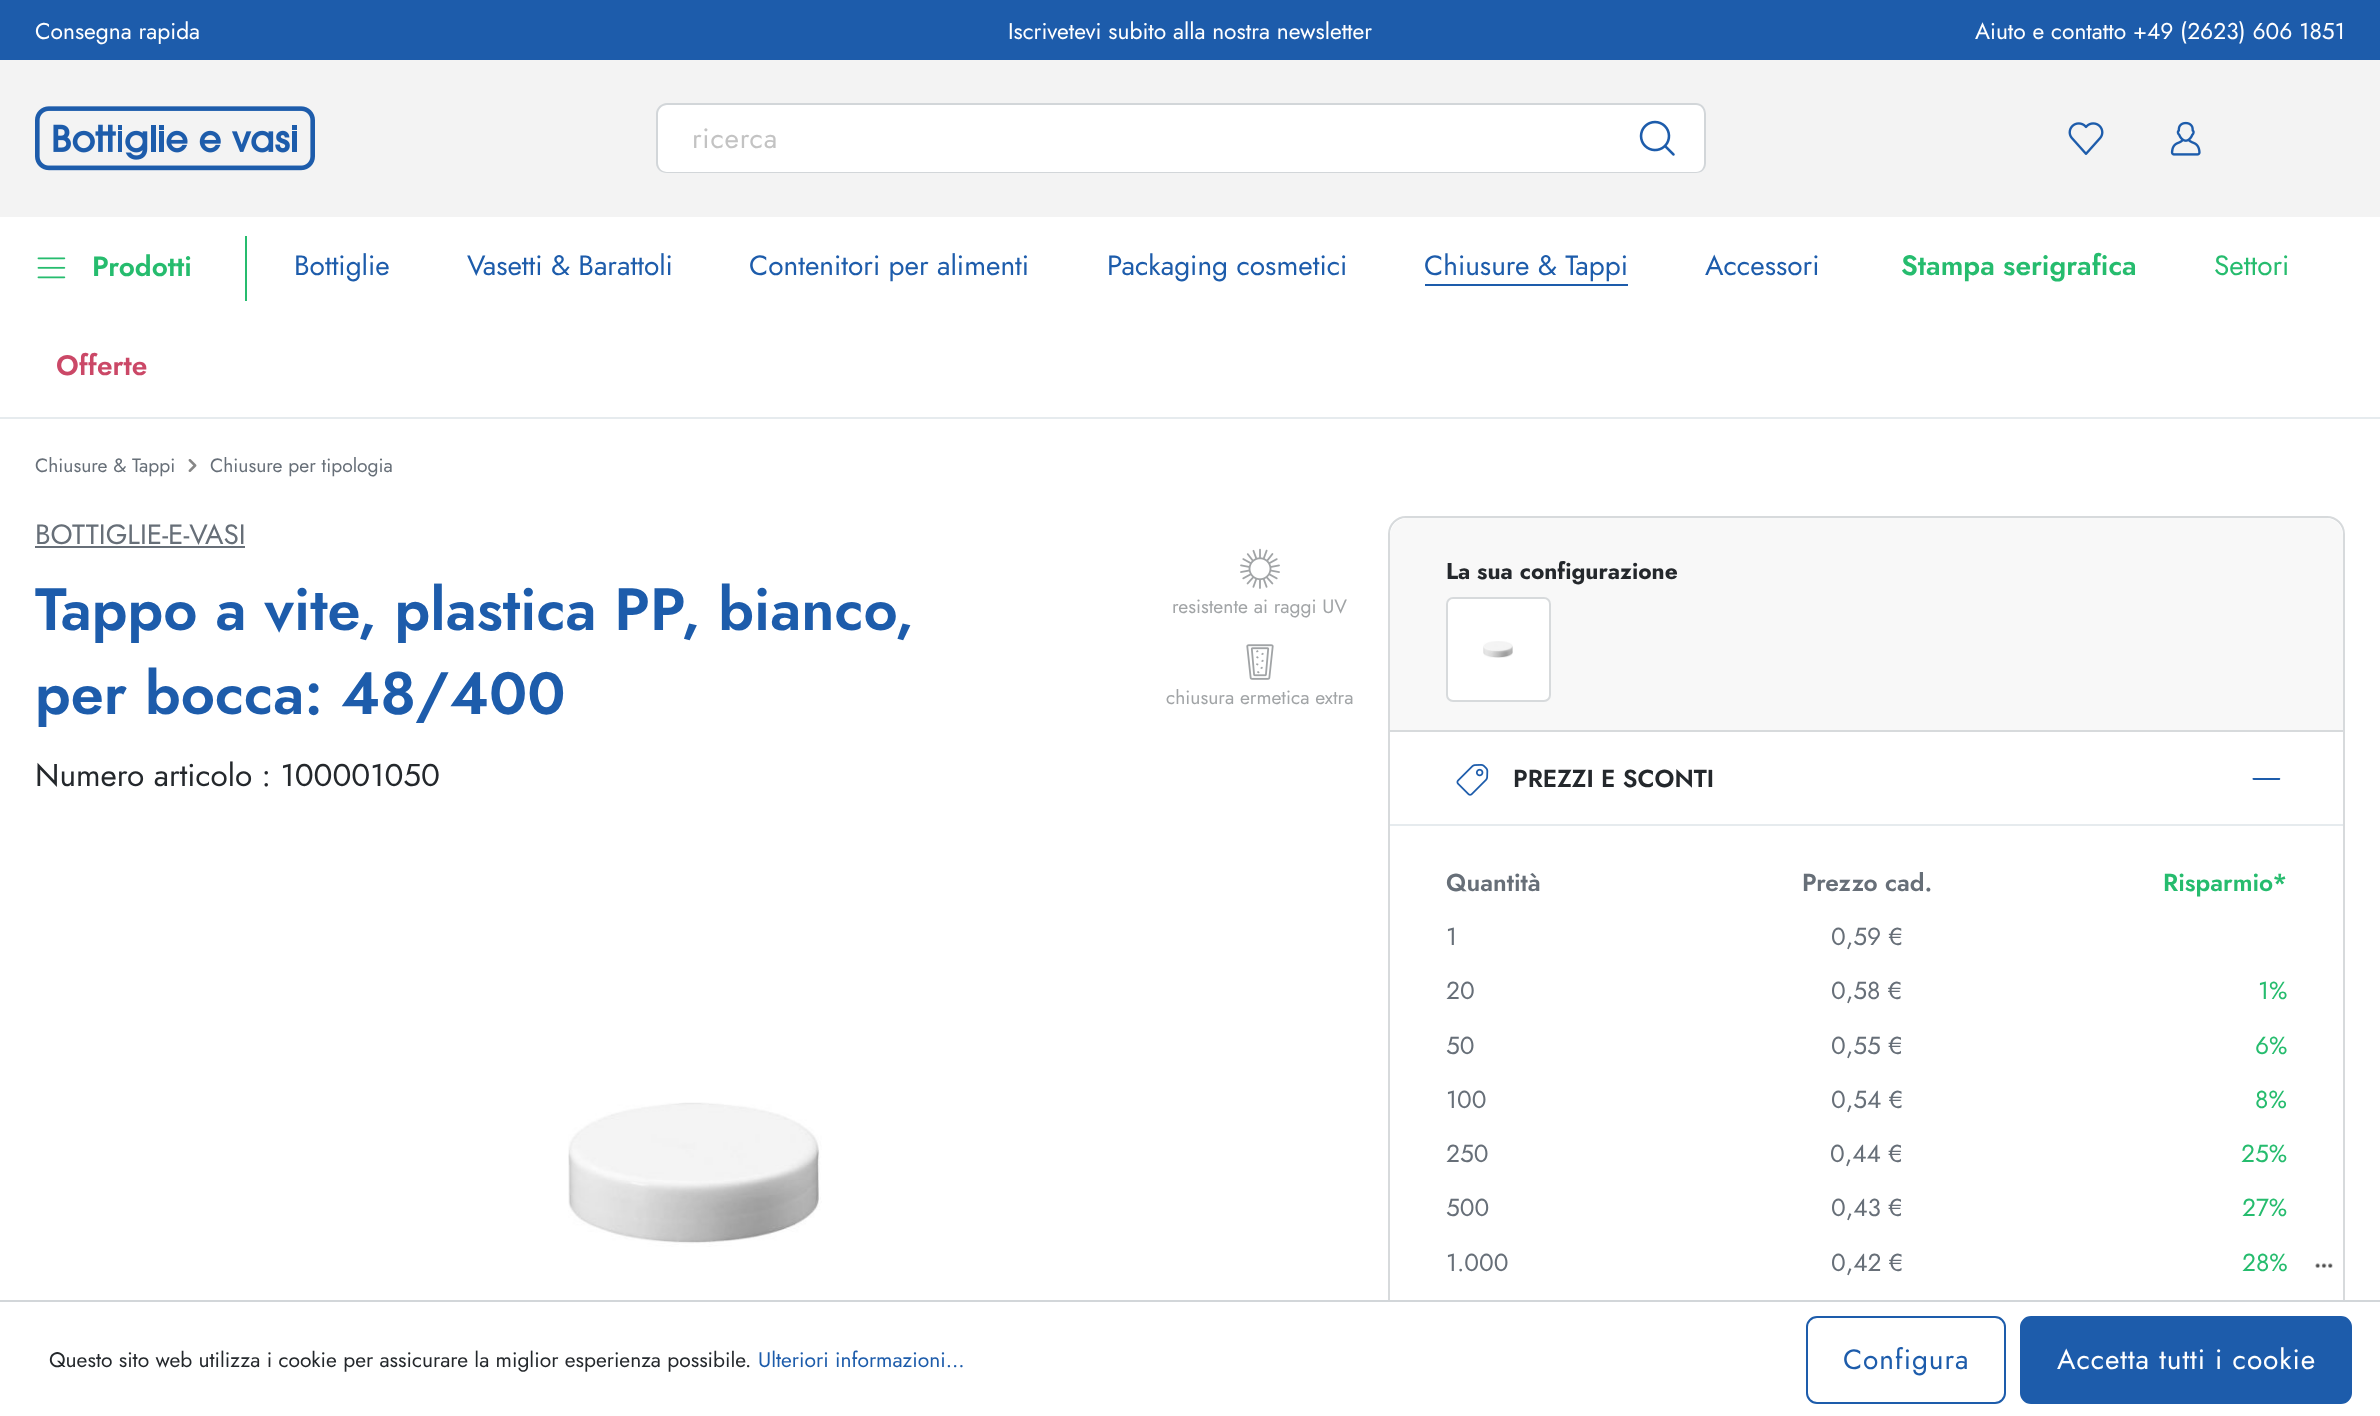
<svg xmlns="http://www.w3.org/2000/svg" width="2380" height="1416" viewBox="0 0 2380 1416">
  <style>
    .t1 { font: 22.75px Jost; fill: #fff; }
    .t2 { font: 28px Jost; letter-spacing: 0.75px; fill: #c3c3c3; }
    .t3 { font: 600 28px Jost; fill: #26bc6e; }
    .t4 { font: 28px Jost; fill: #1d5cab; }
    .t5 { font: 28px Jost; fill: #26bc6e; }
    .t6 { font: 600 28px Jost; fill: #cb4867; }
    .t7 { font: 19.25px Jost; fill: #676f78; }
    .t8 { font: 28px Jost; fill: #676f78; }
    .t9 { font: 600 59.5px Jost; fill: #1d5cab; }
    .t10 { font: 31.5px Jost; fill: #24282c; }
    .t11 { font: 19.25px Jost; fill: #a1a4a6; }
    .t12 { font: bold 22.75px Jost; fill: #24282c; }
    .t13 { font: 600 24.5px Jost; fill: #24282c; }
    .t14 { font: 600 24.5px Jost; fill: #676f78; }
    .t15 { font: 600 24.5px Jost; fill: #26bc6e; }
    .t16 { font: 24.5px Jost; fill: #676f78; }
    .t17 { font: 24.5px Jost; fill: #26bc6e; }
    .t18 { font: 21px Jost; fill: #24282c; }
    .t19 { font: 21px Jost; fill: #1d5cab; }
    .t20 { font: 28px Jost; letter-spacing: 0.9px; fill: #1d5cab; }
    .t21 { font: 28px Jost; letter-spacing: 0.9px; fill: #fff; }
  </style>
  <defs>
    <clipPath id="clip1"><rect x="1390" y="518" width="953" height="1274" rx="16"/></clipPath>
  </defs>
  <rect width="100%" height="100%" fill="#fff"/>
  <rect x="0" y="0" width="2380" height="60" fill="#1d5cab"/>
  <text x="35" y="39" class="t1">Consegna rapida</text>
  <text x="1008" y="39" class="t1">Iscrivetevi subito alla nostra newsletter</text>
  <text x="1975" y="39" class="t1">Aiuto e contatto +49 (2623) 606 1851</text>
  <rect x="0" y="60" width="2380" height="157" fill="#f3f3f3"/>
  <image x="35" y="106" width="280" height="65" href="images/1.png"/>
  <path d="M667 105H1612V172H667C662 172 658 168 658 163V114C658 109 662 105 667 105Z" fill="#fff"/>
  <path d="M667 103H1612V173H667C661 173 656 169 656 163V114C656 108 661 103 667 103ZM667 105H1612V172H667C662 172 658 168 658 163V114C658 109 662 105 667 105Z" fill="#d2d6d9" fill-rule="evenodd"/>
  <text x="692" y="148" class="t2">ricerca</text>
  <path d="M1610 103H1695C1701 103 1706 108 1706 114V162C1706 168 1701 173 1695 173H1610Z" fill="#fff"/>
  <path d="M1610 103H1696C1702 103 1706 108 1706 114V163C1706 169 1702 173 1696 173H1610ZM1610 105H1696C1701 105 1704 109 1704 114V163C1704 168 1701 172 1696 172H1610Z" fill="#d2d6d9" fill-rule="evenodd"/>
  <image x="1639" y="120" width="36" height="36" href="images/2.png"/>
  <image x="2068" y="122" width="36" height="33" href="images/3.png"/>
  <image x="2170" y="121" width="31" height="35" href="images/4.png"/>
  <rect x="0" y="417" width="2380" height="2" fill="#e6ebee"/>
  <image x="37" y="257" width="29" height="22" href="images/5.png"/>
  <text x="92" y="276" class="t3">Prodotti</text>
  <rect x="245" y="236" width="2" height="65" fill="#26bc6e"/>
  <text x="294" y="275" class="t4">Bottiglie</text>
  <text x="467" y="275" class="t4">Vasetti &amp; Barattoli</text>
  <text x="749" y="275" class="t4">Contenitori per alimenti</text>
  <text x="1107" y="275" class="t4">Packaging cosmetici</text>
  <rect x="1425" y="284" width="203" height="2" fill="#1d5cab"/>
  <text x="1424" y="275" class="t4">Chiusure &amp; Tappi</text>
  <text x="1705" y="275" class="t4">Accessori</text>
  <text x="1901" y="275" class="t3">Stampa serigrafica</text>
  <text x="2214" y="275" class="t5">Settori</text>
  <text x="56" y="375" class="t6">Offerte</text>
  <text x="35" y="472" class="t7">Chiusure &amp; Tappi</text>
  <image x="188" y="459" width="9" height="13" href="images/6.png"/>
  <text x="210" y="472" class="t7">Chiusure per tipologia</text>
  <text x="35" y="544" class="t8">BOTTIGLIE-E-VASI</text>
  <rect x="35" y="546" width="210" height="2" fill="#676f78"/>
  <text x="35" y="630" class="t9">Tappo a vite, plastica PP, bianco,</text>
  <text x="35" y="714" class="t9">per bocca: 48/400</text>
  <text x="35" y="786" class="t10">Numero articolo : 100001050</text>
  <image x="1240" y="548" width="40" height="41" href="images/7.png"/>
  <text x="1172" y="613" class="t11">resistente ai raggi UV</text>
  <image x="1246" y="644" width="28" height="36" href="images/8.png"/>
  <text x="1166" y="704" class="t11">chiusura ermetica extra</text>
  <image x="568" y="1102" width="254" height="145" href="images/9.png"/>
  <rect x="1389" y="517" width="955" height="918" rx="17" fill="none" stroke="#d7dadc" stroke-width="2"/>
  <g clip-path="url(#clip1)">
    <path d="M1408 518H2325C2335 518 2343 526 2343 536V732H1390V536C1390 526 1398 518 1408 518Z" fill="#f8f8f8"/>
  </g>
  <rect x="1390" y="730" width="953" height="2" fill="#d7dadc"/>
  <text x="1446" y="579" class="t12">La sua configurazione</text>
  <rect x="1447" y="598" width="103" height="103" rx="6" fill="#fff" stroke="#d7dadc" stroke-width="2"/>
  <image x="1483" y="641" width="30" height="17" href="images/10.png"/>
  <rect x="1390" y="824" width="953" height="2" fill="#e6ebee"/>
  <image x="1456" y="764" width="33" height="32" href="images/11.png"/>
  <text x="1513" y="787" class="t13">PREZZI E SCONTI</text>
  <path d="M2279.5 778C2280.5 778 2280.5 779.5 2279.5 780H2257.5C2255 780 2252 780.5 2252.5 778.5L2253 778Z" fill="#1d5cab"/>
  <text x="1446" y="891" class="t14">Quantità</text>
  <text x="1802" y="891" class="t14">Prezzo cad.</text>
  <text x="2163" y="891" class="t15">Risparmio*</text>
  <text x="1446" y="945" class="t16">1</text>
  <text x="1831" y="945" class="t16">0,59 €</text>
  <text x="1446" y="999" class="t16">20</text>
  <text x="1831" y="999" class="t16">0,58 €</text>
  <text x="2258" y="999" class="t17">1%</text>
  <text x="1446" y="1054" class="t16">50</text>
  <text x="1831" y="1054" class="t16">0,55 €</text>
  <text x="2255" y="1054" class="t17">6%</text>
  <text x="1446" y="1108" class="t16">100</text>
  <text x="1831" y="1108" class="t16">0,54 €</text>
  <text x="2255" y="1108" class="t17">8%</text>
  <text x="1446" y="1162" class="t16">250</text>
  <text x="1830" y="1162" class="t16">0,44 €</text>
  <text x="2241" y="1162" class="t17">25%</text>
  <text x="1446" y="1216" class="t16">500</text>
  <text x="1831" y="1216" class="t16">0,43 €</text>
  <text x="2242" y="1216" class="t17">27%</text>
  <text x="1446" y="1271" class="t16">1.000</text>
  <text x="1831" y="1271" class="t16">0,42 €</text>
  <text x="2242" y="1271" class="t17">28%</text>
  <image x="2315" y="1263" width="18" height="5" href="images/12.png"/>
  <rect x="1388" y="1302" width="957" height="114" fill="#fff"/>
  <rect x="0" y="1300" width="2380" height="2" fill="#d2d6d9"/>
  <text x="49" y="1367" class="t18">Questo sito web utilizza i cookie per assicurare la miglior esperienza possibile.</text>
  <text x="758" y="1367" class="t19">Ulteriori informazioni...</text>
  <rect x="1807" y="1317" width="198" height="86" rx="10" fill="none" stroke="#1d5cab" stroke-width="2"/>
  <text x="1843" y="1369" class="t20">Configura</text>
  <rect x="2021" y="1317" width="330" height="86" rx="10" fill="#1d5cab" stroke="#1d5cab" stroke-width="2"/>
  <text x="2057" y="1369" class="t21">Accetta tutti i cookie</text>
</svg>
